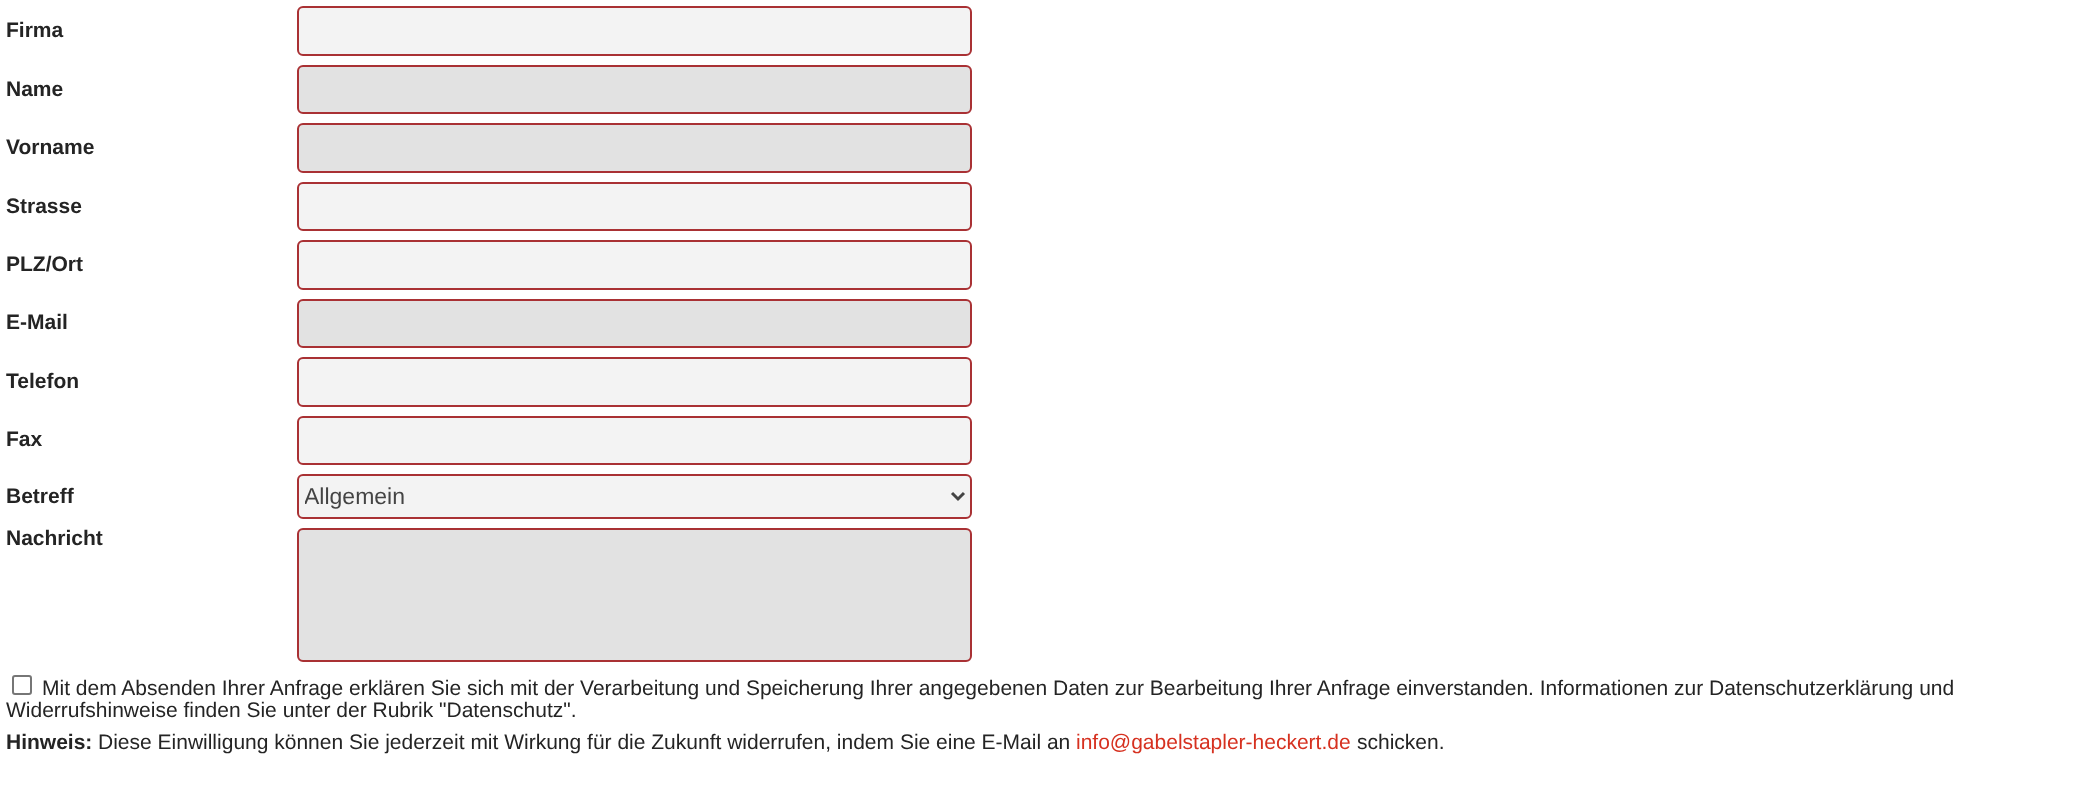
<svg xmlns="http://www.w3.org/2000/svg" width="2086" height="792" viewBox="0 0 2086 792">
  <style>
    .t1 { font: bold 21px Liberation Sans; fill: #242424; }
    .t2 { font: 23px Liberation Sans; fill: #444; }
    .t3 { font: 21px Liberation Sans; fill: #242424; }
    .t4 { font: 21px Liberation Sans; fill: #d63120; }
  </style>
  <defs>
    <clipPath id="clip1"><rect x="305" y="482" width="642" height="28"/></clipPath>
  </defs>
  <rect width="100%" height="100%" fill="#fff"/>
  <text x="6" y="37" class="t1">Firma</text>
  <rect x="298" y="7" width="673" height="48" rx="5" fill="#f3f3f3" stroke="#a93134" stroke-width="2"/>
  <text x="6" y="96" class="t1">Name</text>
  <rect x="298" y="66" width="673" height="47" rx="5" fill="#e2e2e2" stroke="#a93134" stroke-width="2"/>
  <text x="6" y="154" class="t1">Vorname</text>
  <rect x="298" y="124" width="673" height="48" rx="5" fill="#e2e2e2" stroke="#a93134" stroke-width="2"/>
  <text x="6" y="213" class="t1">Strasse</text>
  <rect x="298" y="183" width="673" height="47" rx="5" fill="#f3f3f3" stroke="#a93134" stroke-width="2"/>
  <text x="6" y="271" class="t1">PLZ/Ort</text>
  <rect x="298" y="241" width="673" height="48" rx="5" fill="#f3f3f3" stroke="#a93134" stroke-width="2"/>
  <text x="6" y="329" class="t1">E-Mail</text>
  <rect x="298" y="300" width="673" height="47" rx="5" fill="#e2e2e2" stroke="#a93134" stroke-width="2"/>
  <text x="6" y="388" class="t1">Telefon</text>
  <rect x="298" y="358" width="673" height="48" rx="5" fill="#f3f3f3" stroke="#a93134" stroke-width="2"/>
  <text x="6" y="446" class="t1">Fax</text>
  <rect x="298" y="417" width="673" height="47" rx="5" fill="#f3f3f3" stroke="#a93134" stroke-width="2"/>
  <text x="6" y="503" class="t1">Betreff</text>
  <rect x="298" y="475" width="673" height="43" rx="5" fill="#f3f3f3" stroke="#a93134" stroke-width="2"/>
  <path d="M952 493L958 499L964 493" fill="none" stroke="#444" stroke-width="3"/>
  <g clip-path="url(#clip1)">
    <text x="304" y="504" class="t2">Allgemein</text>
  </g>
  <text x="6" y="545" class="t1">Nachricht</text>
  <rect x="298" y="529" width="673" height="132" rx="5" fill="#e2e2e2" stroke="#a93134" stroke-width="2"/>
  <rect x="13" y="676" width="18" height="18" rx="2" fill="none" stroke="#767676" stroke-width="2"/>
  <text x="42" y="695" class="t3">Mit dem Absenden Ihrer Anfrage erklären Sie sich mit der Verarbeitung und Speicherung Ihrer angegebenen Daten zur Bearbeitung Ihrer Anfrage einverstanden. Informationen zur Datenschutzerklärung und</text>
  <text x="6" y="717" class="t3">Widerrufshinweise finden Sie unter der Rubrik "Datenschutz".</text>
  <text x="6" y="749" class="t1">Hinweis:</text>
  <text x="98" y="749" class="t3">Diese Einwilligung können Sie jederzeit mit Wirkung für die Zukunft widerrufen, indem Sie eine E-Mail an</text>
  <text x="1076" y="749" class="t4">info@gabelstapler-heckert.de</text>
  <text x="1357" y="749" class="t3">schicken.</text>
</svg>
